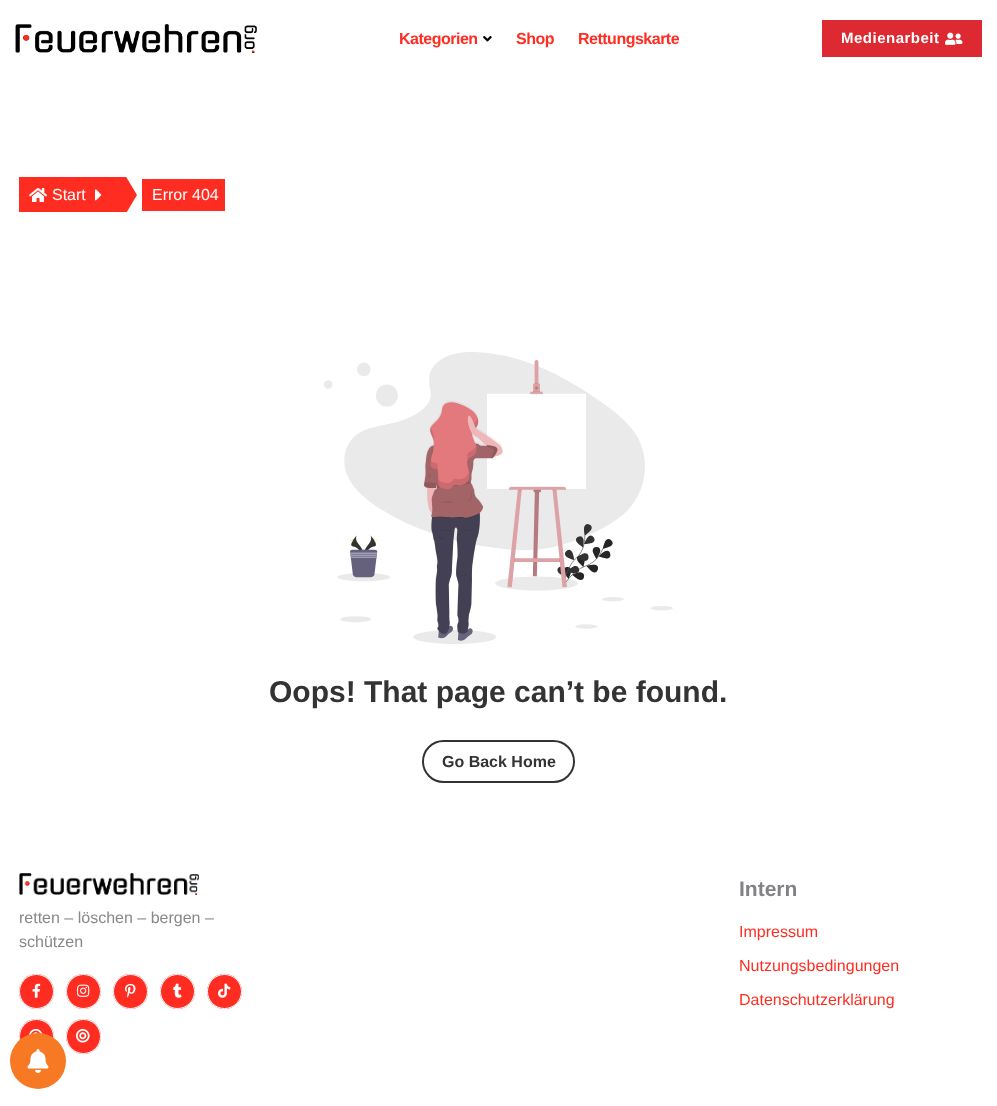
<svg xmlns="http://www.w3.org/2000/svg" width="997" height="1106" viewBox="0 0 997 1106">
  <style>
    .t1 { font: bold 16px Liberation Sans; letter-spacing: -0.5px; fill: #ff2d21; }
    .t2 { font: bold 15px Liberation Sans; letter-spacing: 0.5px; fill: #fff; }
    .t3 { font: 16px Liberation Sans; fill: #fff; }
    .t4 { font: bold 30px Liberation Sans; fill: #333; }
    .t5 { font: bold 16px Liberation Sans; fill: #333; }
    .t6 { font: 16px Liberation Sans; fill: #888; }
    .t7 { font: bold 21px Liberation Sans; fill: #808285; }
    .t8 { font: 16px Liberation Sans; fill: #ff2d21; }
  </style>
  <defs>
    <clipPath id="clip1"><rect x="19" y="177" width="118" height="35"/></clipPath>
    <clipPath id="clip2"><rect x="142" y="179" width="112" height="32"/></clipPath>
  </defs>
  <rect width="100%" height="100%" fill="#fff"/>
  <image x="15" y="24" width="242" height="29" href="images/1.png"/>
  <text x="399" y="44" class="t1">Kategorien</text>
  <image x="483" y="36" width="9" height="6" href="images/2.png"/>
  <text x="516" y="44" class="t1">Shop</text>
  <text x="578" y="44" class="t1">Rettungskarte</text>
  <rect x="822" y="20" width="160" height="37" fill="#dd2931"/>
  <text x="841" y="43" class="t2">Medienarbeit</text>
  <image x="945" y="32" width="18" height="13" href="images/3.png"/>
  <rect x="19" y="177" width="88" height="35" fill="#ff2d21"/>
  <image x="29" y="188" width="18" height="14" href="images/4.png"/>
  <text x="52" y="200" class="t3">Start</text>
  <image x="95" y="189" width="7" height="12" href="images/5.png"/>
  <g clip-path="url(#clip1)">
    <path d="M107 245V145L137 195Z" fill="#ff2d21"/>
  </g>
  <rect x="142" y="179" width="82" height="32" fill="#ff2d21"/>
  <text x="152" y="200" class="t3">Error 404</text>
  <g clip-path="url(#clip2)">
    <path d="M224 245V145L254 195Z" fill="#ff2d21"/>
    <path d="M225 245V145L255 195Z" fill="#fff"/>
  </g>
  <image x="324" y="352" width="349" height="292" href="images/6.png"/>
  <text x="269" y="702" class="t4">Oops! That page can’t be found.</text>
  <rect x="423" y="741" width="151" height="41" rx="20.5" fill="none" stroke="#333" stroke-width="2"/>
  <text x="442" y="767" class="t5">Go Back Home</text>
  <image x="19" y="873" width="180" height="22" href="images/7.png"/>
  <text x="19" y="923" class="t6">retten – löschen – bergen –</text>
  <text x="19" y="947" class="t6">schützen</text>
  <circle cx="36.5" cy="991.5" r="17.5" fill="#ff2d21"/>
  <image x="32" y="983" width="9" height="15" href="images/8.png"/>
  <circle cx="36.5" cy="991.5" r="17" fill="none" stroke="#fff"/>
  <circle cx="83.5" cy="991.5" r="17.5" fill="#ff2d21"/>
  <image x="77" y="984" width="13" height="13" href="images/9.png"/>
  <circle cx="83.5" cy="991.5" r="17" fill="none" stroke="#fff"/>
  <circle cx="130.5" cy="991.5" r="17.5" fill="#ff2d21"/>
  <image x="125" y="983" width="11" height="15" href="images/10.png"/>
  <circle cx="130.5" cy="991.5" r="17" fill="none" stroke="#fff"/>
  <circle cx="177.5" cy="991.5" r="17.5" fill="#ff2d21"/>
  <image x="173" y="983" width="9" height="15" href="images/11.png"/>
  <circle cx="177.5" cy="991.5" r="17" fill="none" stroke="#fff"/>
  <circle cx="224.5" cy="991.5" r="17.5" fill="#ff2d21"/>
  <image x="218" y="983" width="13" height="15" href="images/12.png"/>
  <circle cx="224.5" cy="991.5" r="17" fill="none" stroke="#fff"/>
  <circle cx="36.5" cy="1036.5" r="17.5" fill="#ff2d21"/>
  <image x="29" y="1029" width="14" height="6" href="images/13.png"/>
  <circle cx="36.5" cy="1036.5" r="17" fill="none" stroke="#fff"/>
  <circle cx="83.5" cy="1036.5" r="17.5" fill="#ff2d21"/>
  <image x="76" y="1029" width="14" height="14" href="images/14.png"/>
  <circle cx="83.5" cy="1036.5" r="17" fill="none" stroke="#fff"/>
  <text x="739" y="896" class="t7">Intern</text>
  <text x="739" y="937" class="t8">Impressum</text>
  <text x="739" y="971" class="t8">Nutzungsbedingungen</text>
  <text x="739" y="1005" class="t8">Datenschutzerklärung</text>
  <circle cx="38" cy="1061" r="28" fill="#f77924"/>
  <image x="27" y="1049" width="22" height="24" href="images/15.png"/>
</svg>
